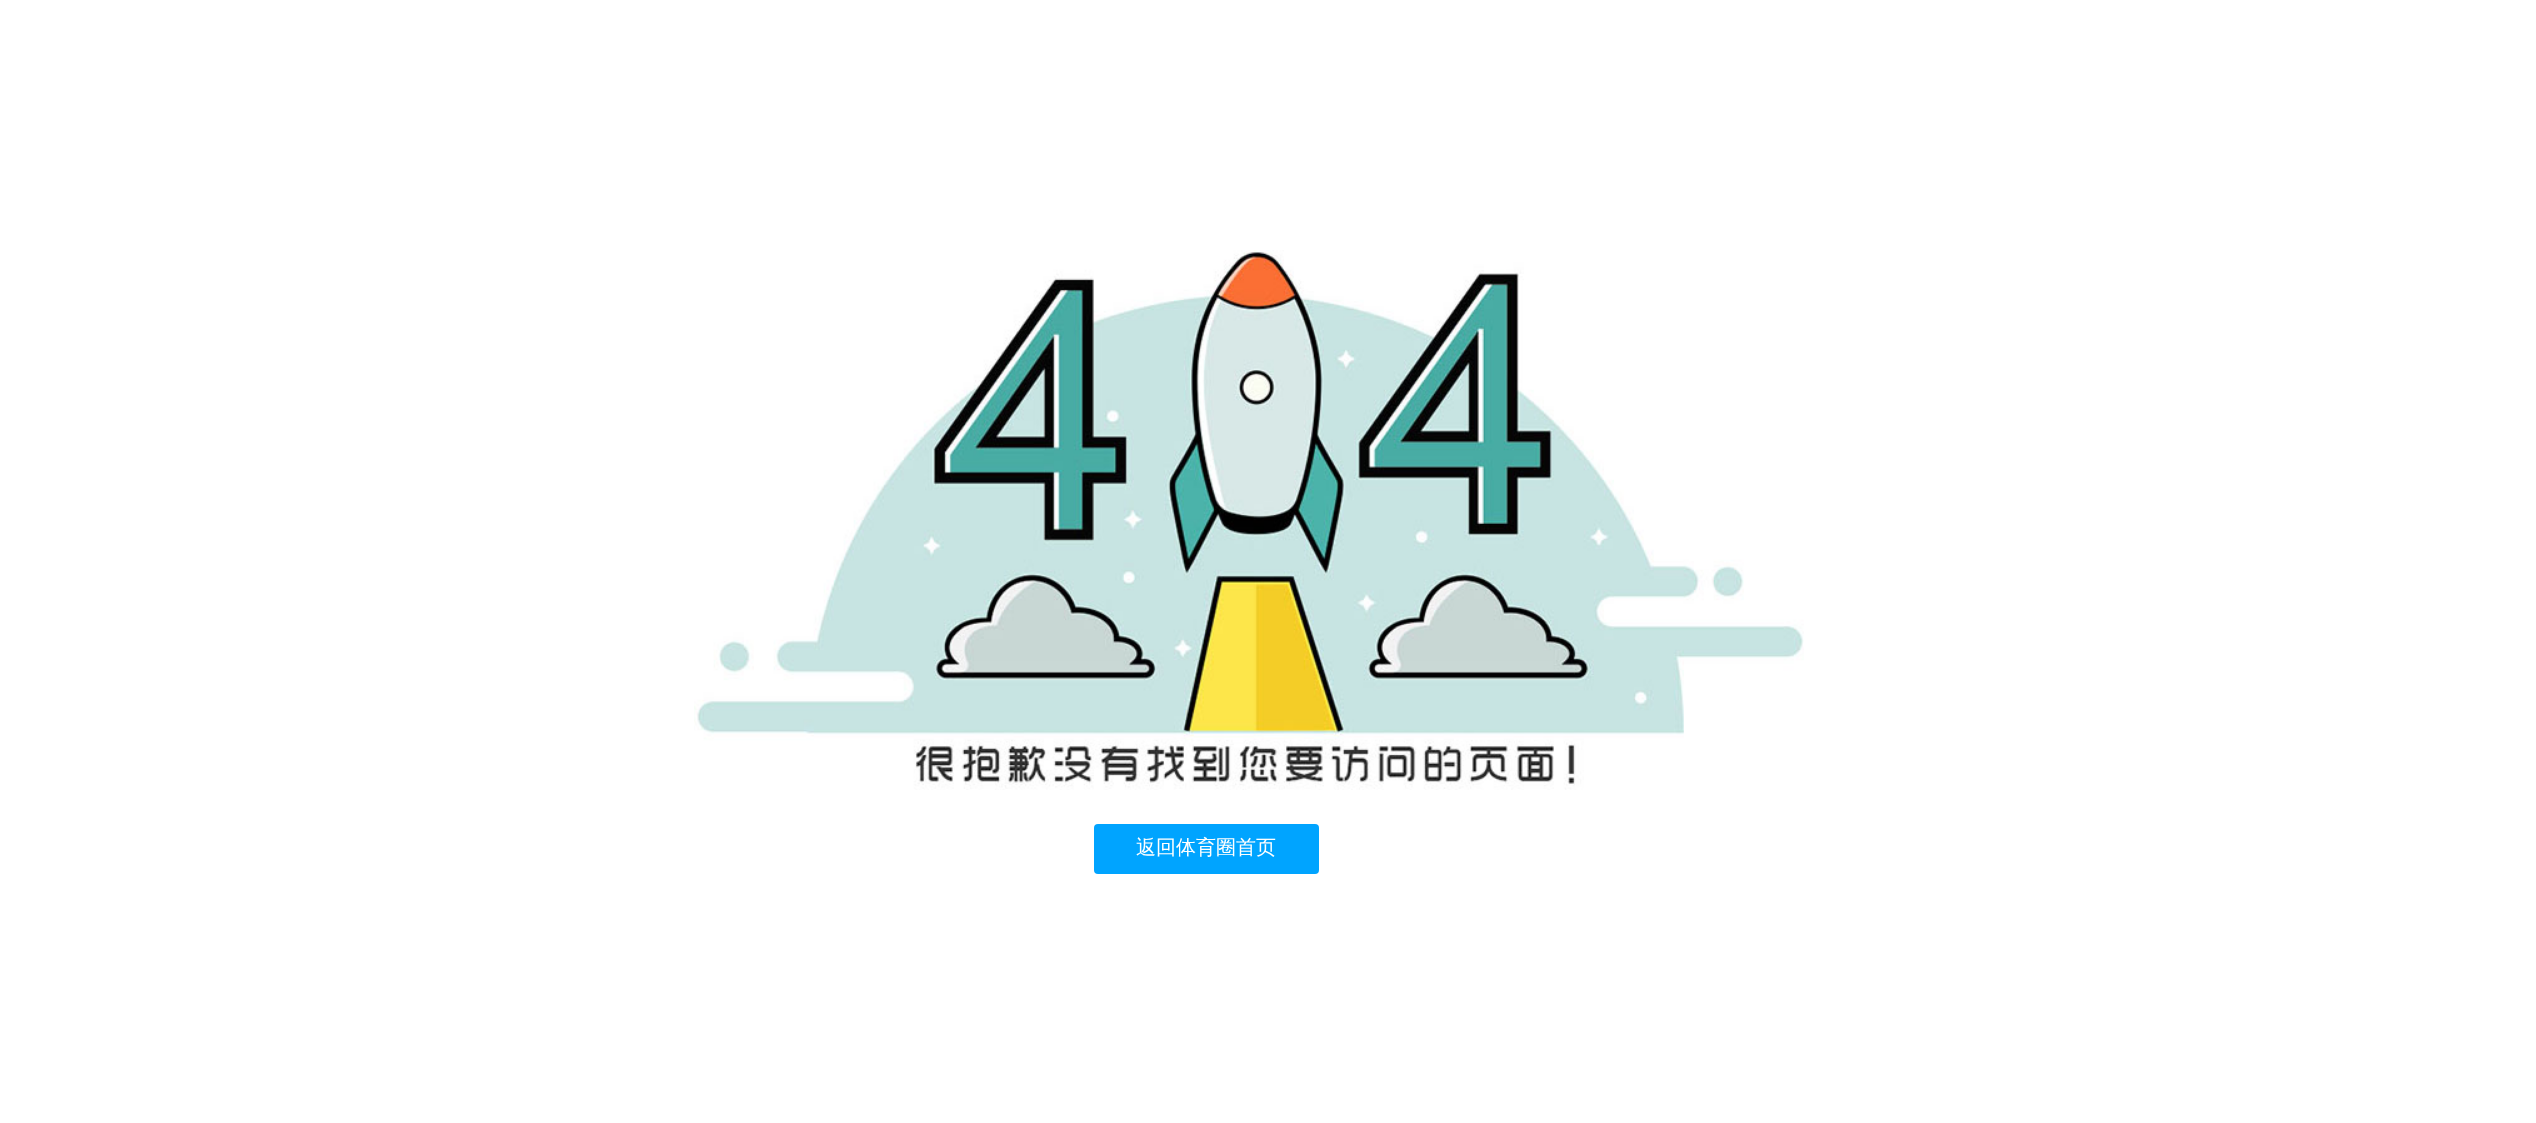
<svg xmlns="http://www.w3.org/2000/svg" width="2536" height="1123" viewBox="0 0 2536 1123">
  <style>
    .t1 { font: 500 20px WenQuanYi Zen Hei; fill: #fff; }
  </style>
  <rect width="100%" height="100%" fill="#fff"/>
  <image x="694" y="250" width="1110" height="540" href="images/1.png"/>
  <rect x="1094" y="824" width="225" height="50" rx="4" fill="#00a4ff"/>
  <text x="1136" y="854" class="t1">返回体育圈首页</text>
</svg>
